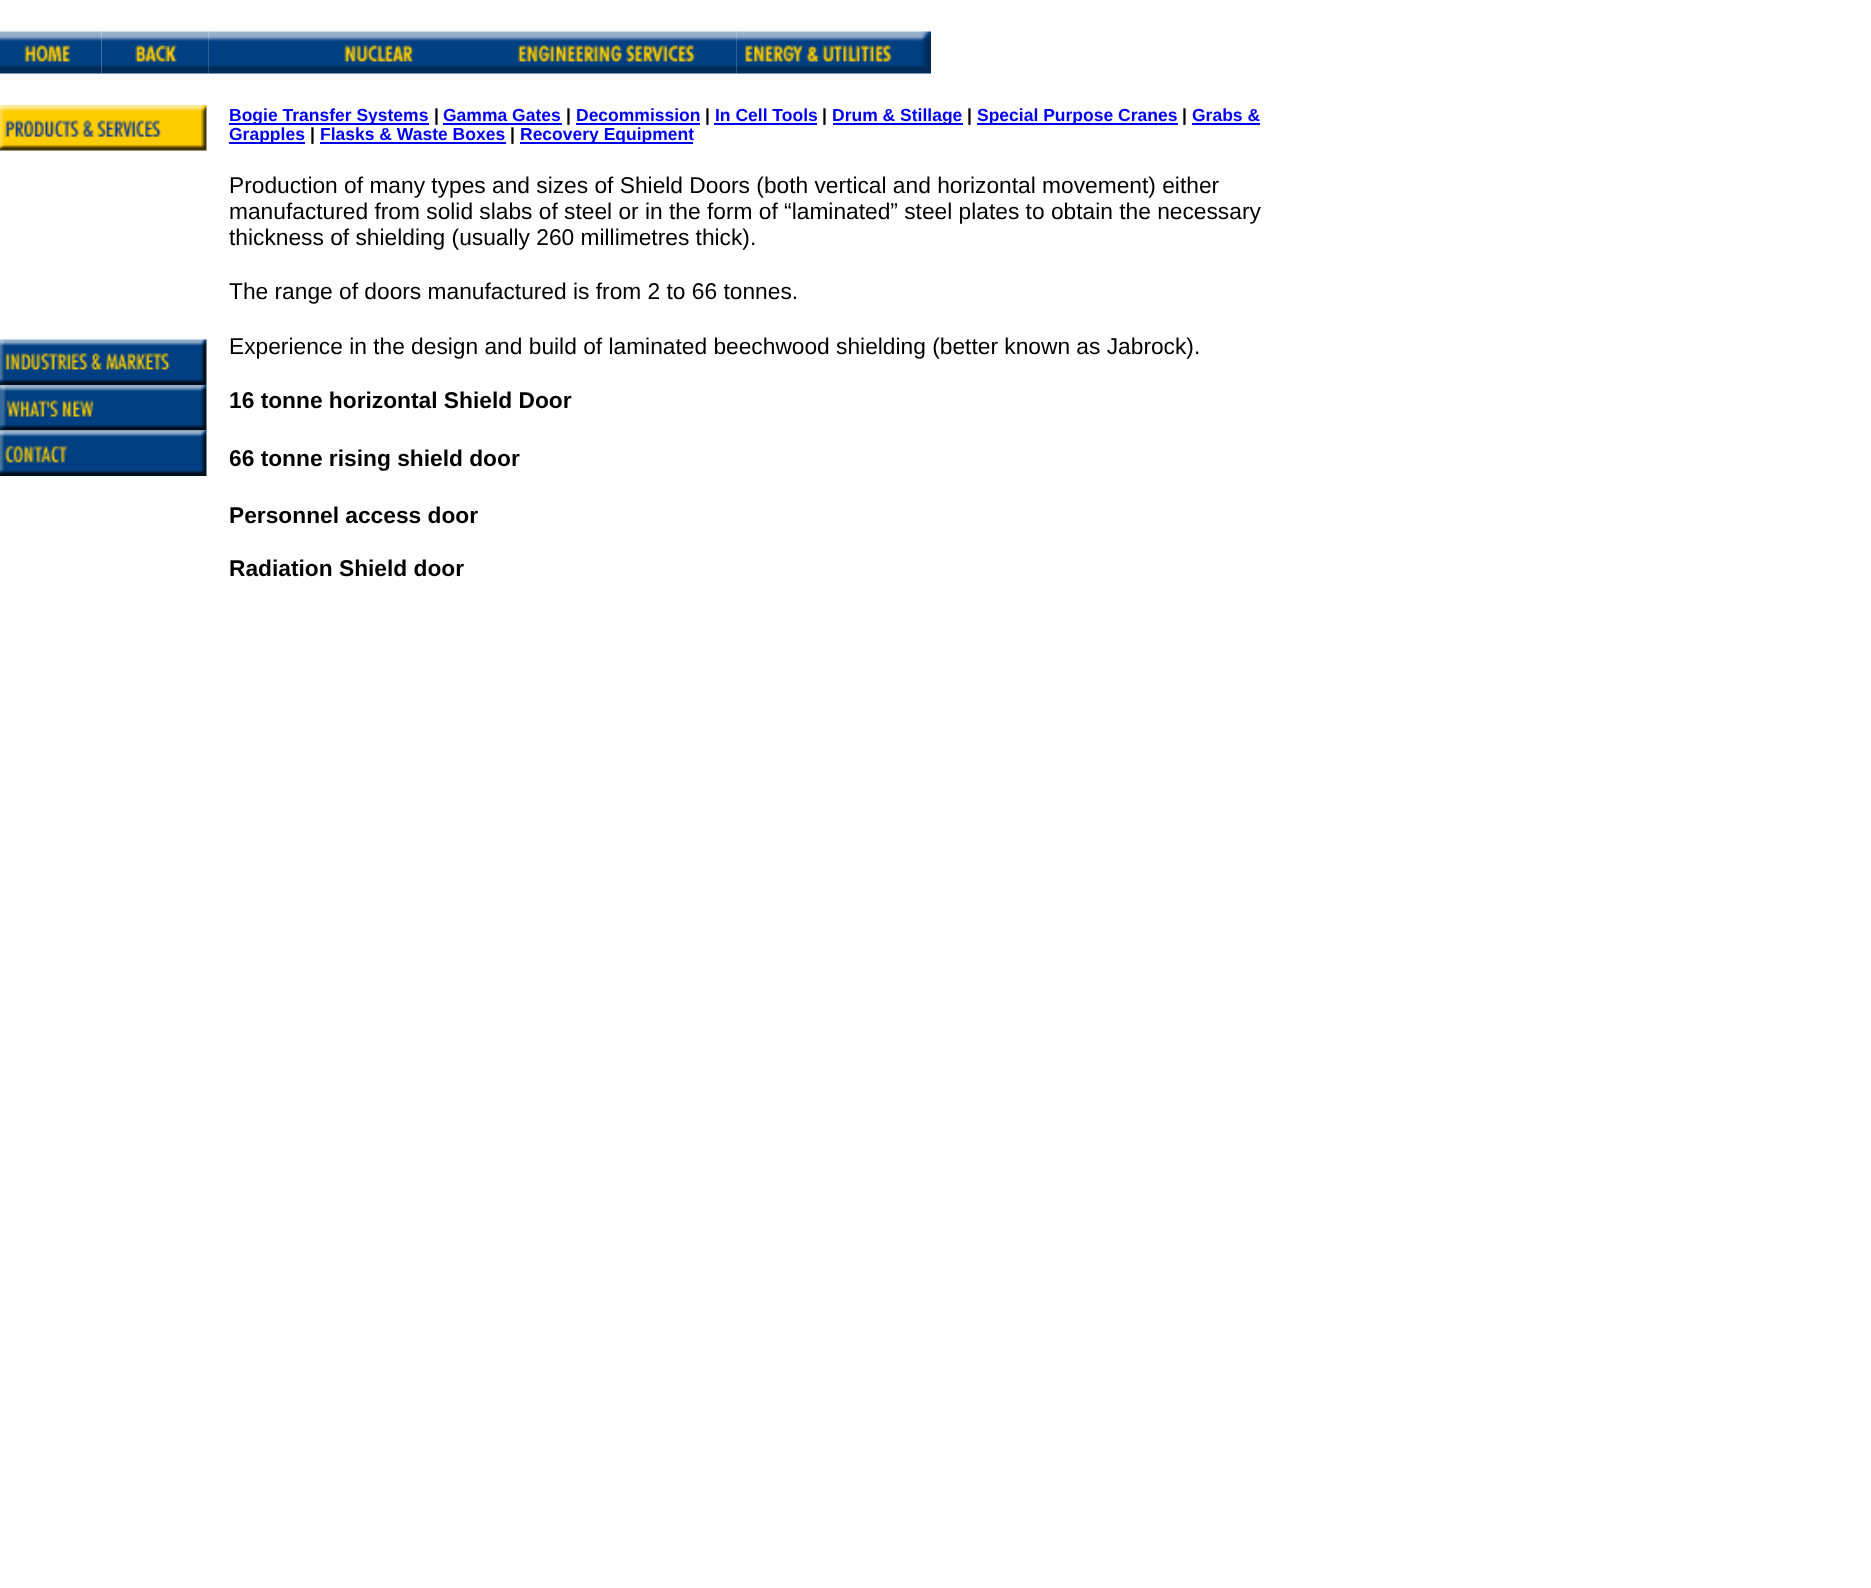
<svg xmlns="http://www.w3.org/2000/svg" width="1871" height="1588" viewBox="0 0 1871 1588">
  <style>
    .t1 { font: bold 17.5px Liberation Sans; fill: #00e; }
    .t2 { font: bold 17.5px Liberation Sans; fill: #000; }
    .t3 { font: 22.75px Liberation Sans; fill: #000; }
    .t4 { font: bold 22.75px Liberation Sans; fill: #000; }
  </style>
  <rect width="100%" height="100%" fill="#fff"/>
  <image x="0" y="31" width="102" height="43" href="images/1.png"/>
  <image x="101" y="31" width="108" height="43" href="images/2.png"/>
  <image x="208" y="31" width="128" height="43" href="images/3.png"/>
  <image x="336" y="31" width="175" height="43" href="images/4.png"/>
  <image x="511" y="31" width="226" height="43" href="images/5.png"/>
  <image x="736" y="31" width="181" height="43" href="images/6.png"/>
  <image x="917" y="31" width="14" height="43" href="images/7.png"/>
  <image x="0" y="105" width="207" height="46" href="images/8.png"/>
  <image x="0" y="339" width="207" height="46" href="images/9.png"/>
  <image x="0" y="385" width="207" height="46" href="images/10.png"/>
  <image x="0" y="430" width="207" height="46" href="images/11.png"/>
  <rect x="229" y="123" width="200" height="2" fill="#00e"/>
  <text x="229" y="121" class="t1">Bogie Transfer Systems</text>
  <text x="434" y="121" class="t2">|</text>
  <text x="443" y="121" class="t1">Gamma Gates</text>
  <rect x="443" y="123" width="119" height="2" fill="#00e"/>
  <text x="566" y="121" class="t2">|</text>
  <text x="576" y="121" class="t1">Decommission</text>
  <rect x="576" y="123" width="124" height="2" fill="#00e"/>
  <text x="705" y="121" class="t2">|</text>
  <text x="715" y="121" class="t1">In Cell Tools</text>
  <rect x="714" y="123" width="103" height="2" fill="#00e"/>
  <text x="822" y="121" class="t2">|</text>
  <rect x="833" y="123" width="130" height="2" fill="#00e"/>
  <text x="832" y="121" class="t1">Drum &amp; Stillage</text>
  <text x="967" y="121" class="t2">|</text>
  <rect x="977" y="123" width="201" height="2" fill="#00e"/>
  <text x="977" y="121" class="t1">Special Purpose Cranes</text>
  <text x="1182" y="121" class="t2">|</text>
  <text x="1192" y="121" class="t1">Grabs &amp;</text>
  <rect x="1192" y="123" width="68" height="2" fill="#00e"/>
  <rect x="229" y="142" width="76" height="2" fill="#00e"/>
  <text x="229" y="140" class="t1">Grapples</text>
  <text x="310" y="140" class="t2">|</text>
  <text x="320" y="140" class="t1">Flasks &amp; Waste Boxes</text>
  <rect x="320" y="142" width="186" height="2" fill="#00e"/>
  <text x="510" y="140" class="t2">|</text>
  <rect x="520" y="142" width="173" height="2" fill="#00e"/>
  <text x="520" y="140" class="t1">Recovery Equipment</text>
  <text x="229" y="193" class="t3">Production of many types and sizes of Shield Doors (both vertical and horizontal movement) either</text>
  <text x="229" y="219" class="t3">manufactured from solid slabs of steel or in the form of “laminated” steel plates to obtain the necessary</text>
  <text x="229" y="245" class="t3">thickness of shielding (usually 260 millimetres thick).</text>
  <text x="229" y="299" class="t3">The range of doors manufactured is from 2 to 66 tonnes.</text>
  <text x="229" y="354" class="t3">Experience in the design and build of laminated beechwood shielding (better known as Jabrock).</text>
  <text x="229" y="408" class="t4">16 tonne horizontal Shield Door</text>
  <text x="229" y="466" class="t4">66 tonne rising shield door</text>
  <text x="229" y="523" class="t4">Personnel access door</text>
  <text x="229" y="576" class="t4">Radiation Shield door</text>
</svg>
